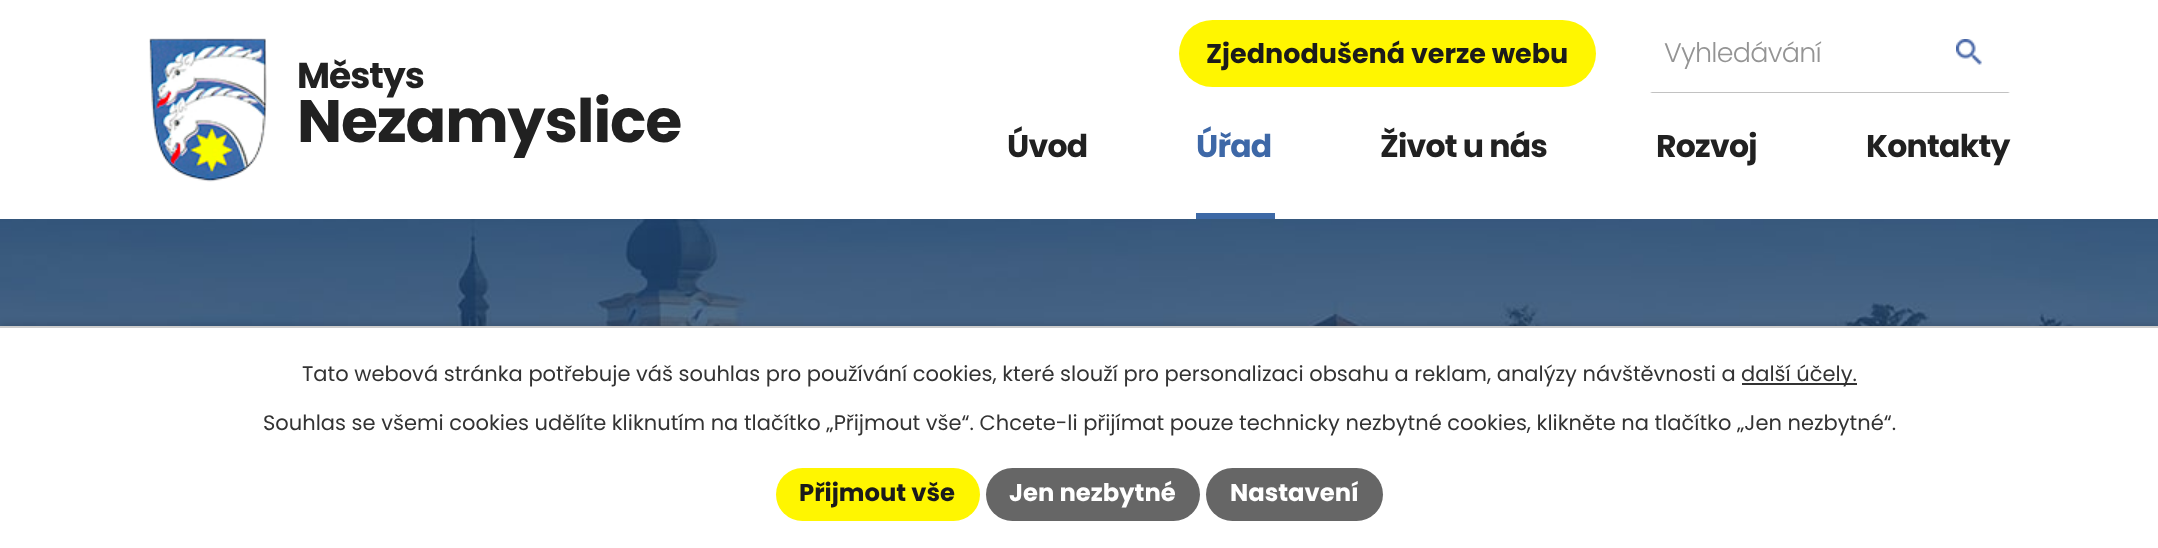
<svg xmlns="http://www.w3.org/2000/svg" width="2158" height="548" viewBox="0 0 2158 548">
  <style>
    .t1 { font: bold 27px Poppins; fill: #1b1b1b; }
    .t2 { font: 300 27px Poppins; letter-spacing: -0.75px; fill: #949494; }
    .t3 { font: bold 36px Poppins; letter-spacing: -1px; fill: #212121; }
    .t4 { font: bold 60px Poppins; letter-spacing: -1.1px; fill: #212121; }
    .t5 { font: bold 31.5px Poppins; letter-spacing: -0.75px; fill: #212121; }
    .t6 { font: bold 31.5px Poppins; letter-spacing: -0.75px; fill: #3e68a7; }
    .t7 { font: 21px Poppins; fill: #333; }
    .t8 { font: bold 24.25px Poppins; fill: #1b1b1b; }
    .t9 { font: bold 24.25px Poppins; fill: #fff; }
  </style>
  <rect width="100%" height="100%" fill="#fff"/>
  <rect x="1179" y="20" width="417" height="67" rx="33.5" fill="#fff600"/>
  <text x="1206" y="63" class="t1">Zjednodušená verze webu</text>
  <path d="M2010 93H1650L1652 92H2008Z" fill="#c2c2c2"/>
  <text x="1664" y="62" class="t2">Vyhledávání</text>
  <image x="1956" y="39" width="26" height="26" href="images/1.png"/>
  <image x="149" y="38" width="118" height="144" href="images/2.png"/>
  <text x="297" y="88" class="t3">Městys</text>
  <text x="297" y="142" class="t4">Nezamyslice</text>
  <text x="1007" y="157" class="t5">Úvod</text>
  <text x="1196" y="157" class="t6">Úřad</text>
  <rect x="1196" y="213" width="79" height="6" fill="#3d69a6"/>
  <text x="1380" y="157" class="t5">Život u nás</text>
  <text x="1656" y="157" class="t5">Rozvoj</text>
  <text x="1866" y="157" class="t5">Kontakty</text>
  <image x="0" y="219" width="2158" height="107" href="images/3.png"/>
  <rect x="0" y="326" width="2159" height="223" fill="#00000033" filter="blur(4px)"/>
  <rect x="0" y="328" width="2158" height="220" fill="#fff"/>
  <rect x="0" y="326" width="2158" height="2" fill="#ccc"/>
  <text x="302" y="381" class="t7">Tato webová stránka potřebuje váš souhlas pro používání cookies, které slouží pro personalizaci obsahu a reklam, analýzy návštěvnosti a</text>
  <rect x="1742" y="383" width="115" height="2" fill="#333"/>
  <text x="1741" y="381" class="t7">další účely.</text>
  <text x="263" y="430" class="t7">Souhlas se všemi cookies udělíte kliknutím na tlačítko „Přijmout vše“. Chcete-li přijímat pouze technicky nezbytné cookies, klikněte na tlačítko „Jen nezbytné“.</text>
  <rect x="776" y="468" width="204" height="53" rx="26.5" fill="#fff600"/>
  <text x="799" y="501" class="t8">Přijmout vše</text>
  <rect x="986" y="468" width="214" height="53" rx="26.5" fill="#666"/>
  <text x="1009" y="501" class="t9">Jen nezbytné</text>
  <rect x="1206" y="468" width="177" height="53" rx="26.5" fill="#666"/>
  <text x="1230" y="501" class="t9">Nastavení</text>
</svg>
